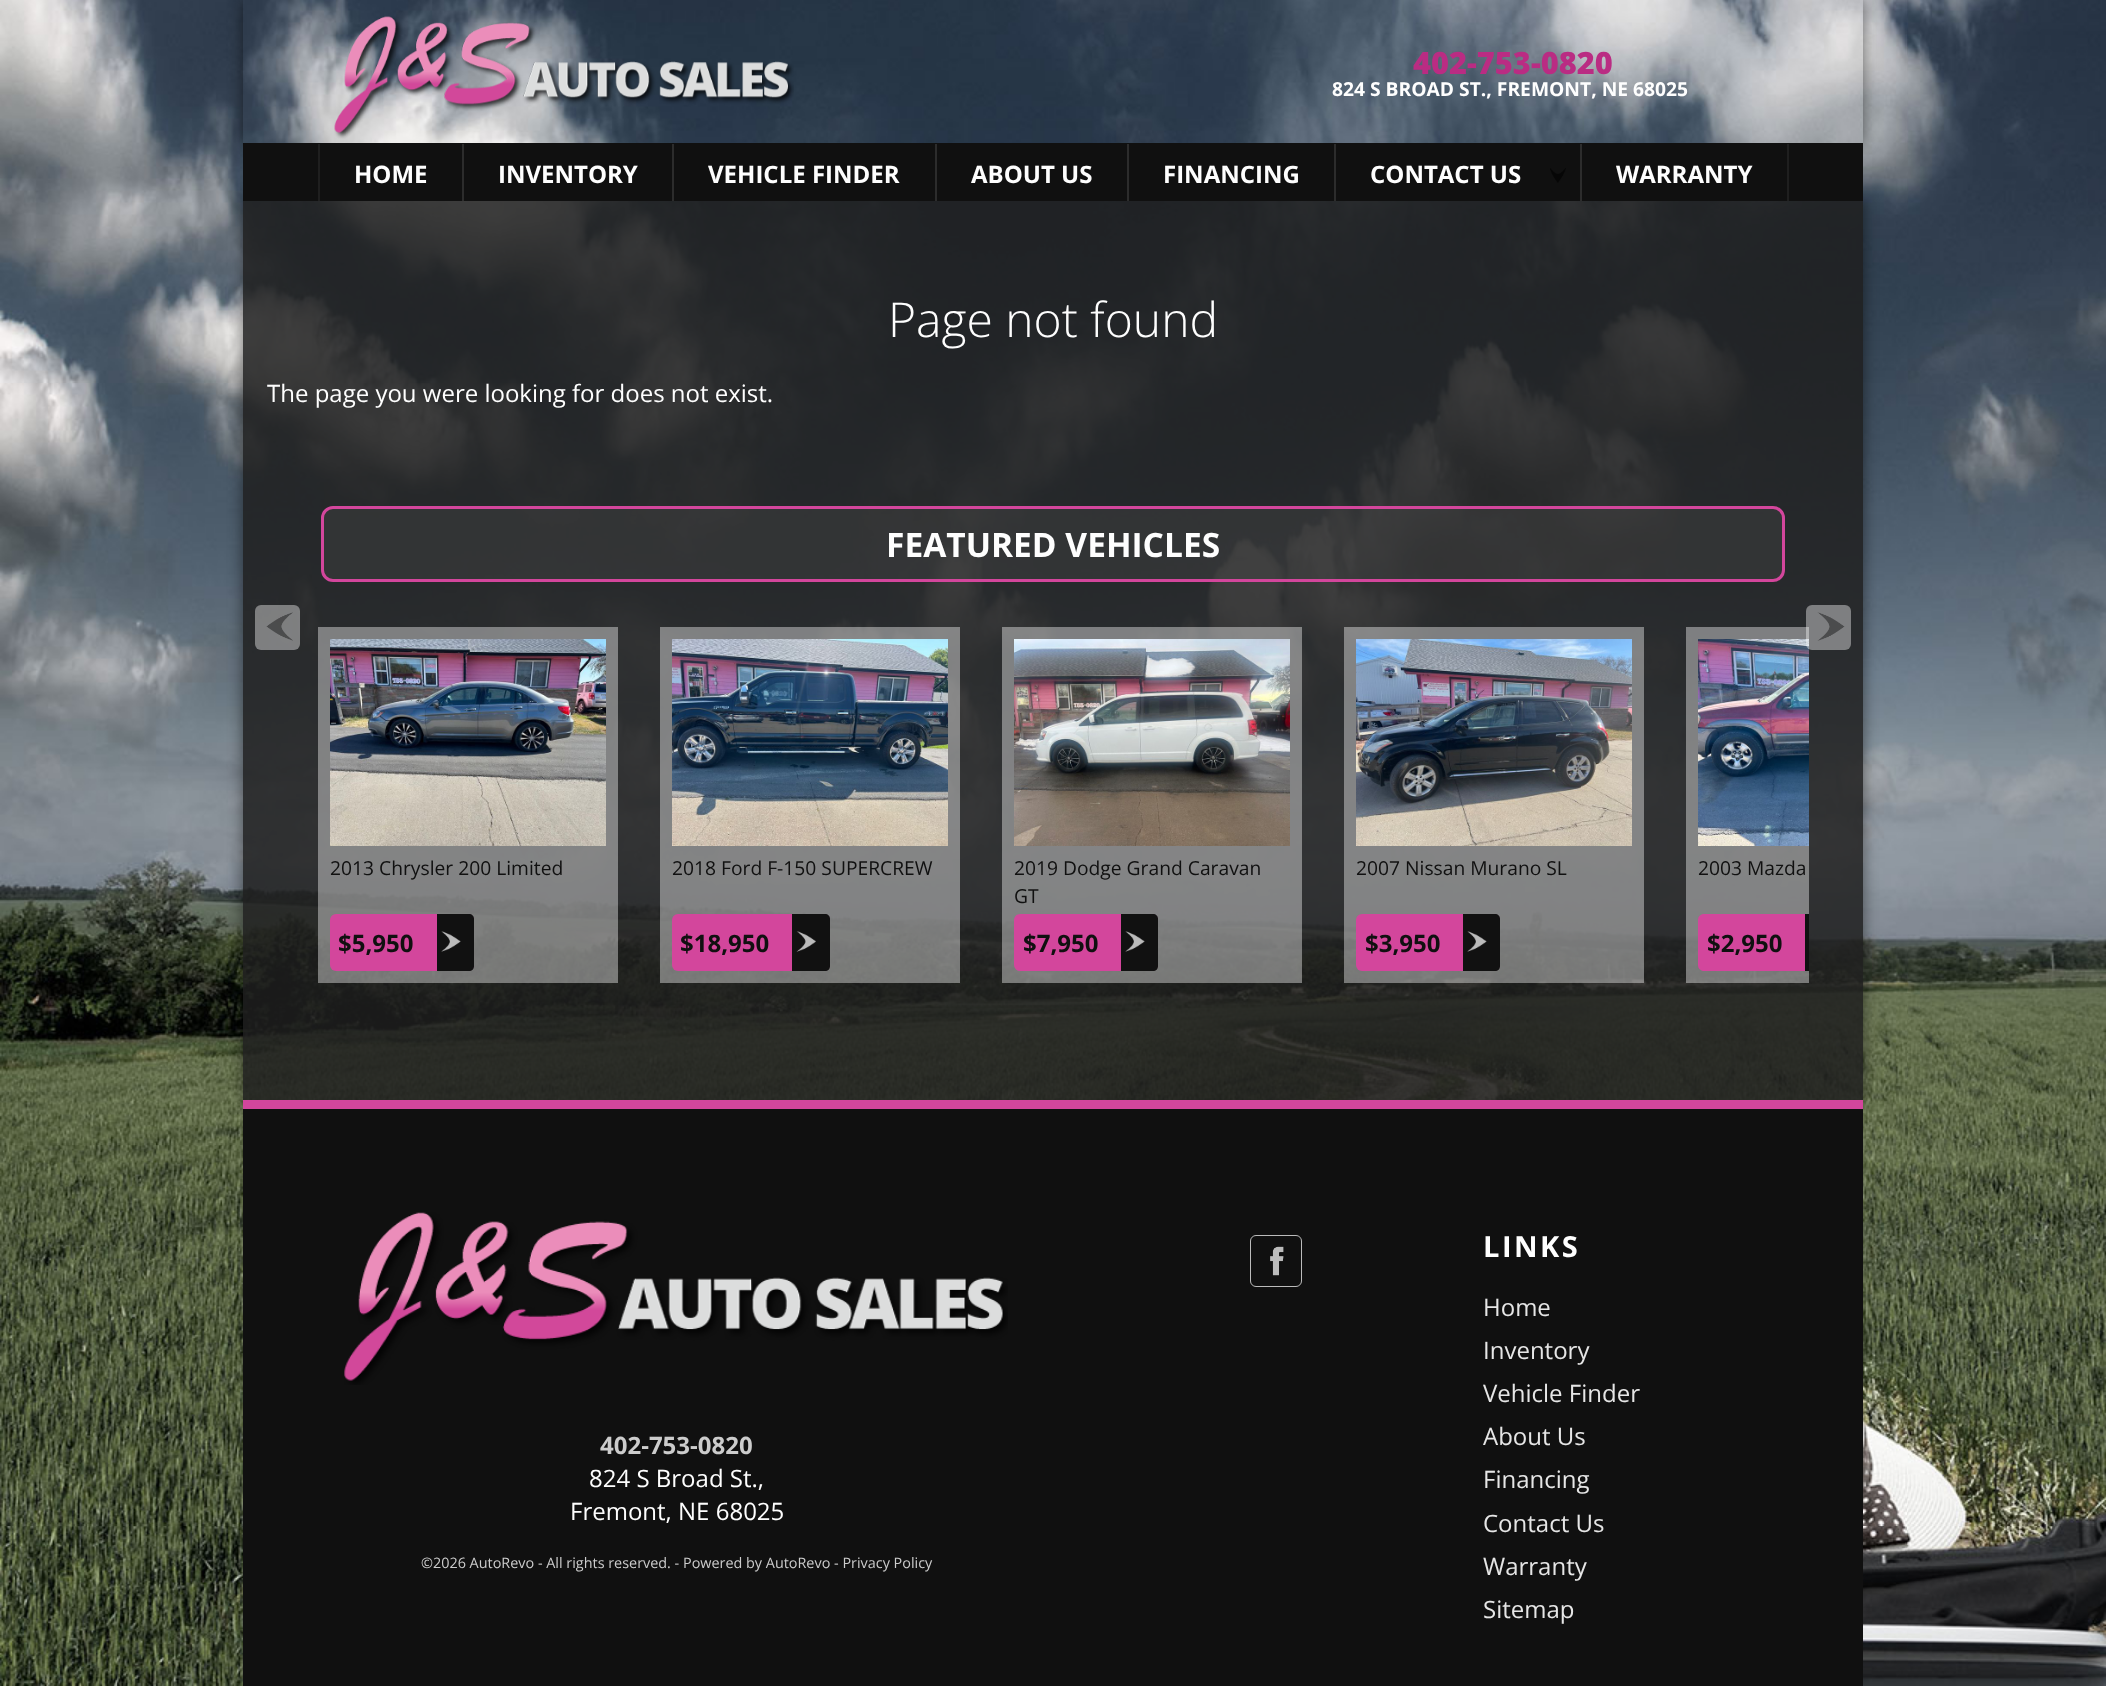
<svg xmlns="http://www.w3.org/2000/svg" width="2106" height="1686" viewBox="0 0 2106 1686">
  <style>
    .t1 { font: 800 30.75px Open Sans; fill: #ba2c83; }
    .t2 { font: bold 19.25px Open Sans; fill: #fefefe; }
    .t3 { font: bold 24px Open Sans; fill: #fefefe; }
    .t4 { font: 300 48px Open Sans; fill: #fefefe; }
    .t5 { font: 24px Open Sans; fill: #fefefe; }
    .t6 { font: bold 33.5px Open Sans; fill: #fefefe; }
    .t7 { font: 19.25px Open Sans; fill: #101010; }
    .t8 { font: bold 24px Open Sans; fill: #101010; }
    .t9 { font: bold 24px Open Sans; fill: #ccc; }
    .t10 { font: 14.4px Open Sans; fill: #ccc; }
    .t11 { font: bold 29px Open Sans; letter-spacing: 2.5px; fill: #fefefe; }
    .t12 { font: 24px Open Sans; fill: #e6e6e6; }
  </style>
  <defs>
    <clipPath id="clip1"><path d="M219 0H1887V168H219ZM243 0H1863V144H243Z" clip-rule="evenodd"/></clipPath>
    <clipPath id="clip2"><path d="M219 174H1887V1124H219ZM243 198H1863V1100H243Z" clip-rule="evenodd"/></clipPath>
  </defs>
  <rect width="100%" height="100%" fill="#fff"/>
  <image x="0" y="0" width="2106" height="1686" href="images/1.png"/>
  <g clip-path="url(#clip1)">
    <rect x="243" y="0" width="1620" height="144" fill="#00000080" filter="blur(7.5px)"/>
  </g>
  <image x="334" y="16" width="460" height="123" href="images/2.png"/>
  <text x="1413" y="74" class="t1">402-753-0820</text>
  <text x="1332" y="96" class="t2">824 S BROAD ST., FREMONT, NE 68025</text>
  <g clip-path="url(#clip2)">
    <rect x="243" y="198" width="1620" height="902" fill="#00000080" filter="blur(7.5px)"/>
  </g>
  <rect x="243" y="143" width="1620" height="58" fill="#101010"/>
  <rect x="462" y="144" width="2" height="57" fill="#2c2c2c"/>
  <rect x="318" y="144" width="2" height="57" fill="#1f1f1f"/>
  <text x="354" y="183" class="t3">HOME</text>
  <rect x="672" y="144" width="2" height="57" fill="#2c2c2c"/>
  <text x="498" y="183" class="t3">INVENTORY</text>
  <rect x="935" y="144" width="2" height="57" fill="#2c2c2c"/>
  <text x="708" y="183" class="t3">VEHICLE FINDER</text>
  <rect x="1127" y="144" width="2" height="57" fill="#2c2c2c"/>
  <text x="971" y="183" class="t3">ABOUT US</text>
  <rect x="1334" y="144" width="2" height="57" fill="#2c2c2c"/>
  <text x="1163" y="183" class="t3">FINANCING</text>
  <rect x="1580" y="144" width="2" height="57" fill="#2c2c2c"/>
  <text x="1370" y="183" class="t3">CONTACT US</text>
  <image x="1550" y="168" width="16" height="15" href="images/3.png"/>
  <rect x="1787" y="144" width="2" height="57" fill="#1f1f1f"/>
  <text x="1616" y="183" class="t3">WARRANTY</text>
  <rect x="243" y="201" width="1620" height="899" fill="#1f1f1fd9"/>
  <text x="888" y="337" class="t4">Page not found</text>
  <text x="267" y="402" class="t5">The page you were looking for does not exist.</text>
  <rect x="322.5" y="507.5" width="1461" height="73" rx="10.5" fill="#45454566" stroke="#d3469c" stroke-width="3"/>
  <text x="886" y="557" class="t6">FEATURED VEHICLES</text>
  <rect x="255" y="605" width="45" height="45" rx="6" fill="#fefefe66"/>
  <image x="266" y="612" width="27" height="29" href="images/4.png"/>
  <rect x="1686" y="627" width="123" height="356" fill="#fefefe66"/>
  <image x="1698" y="639" width="111" height="207" href="images/13.png"/>
  <rect x="1806" y="605" width="45" height="45" rx="6" fill="#fefefe66"/>
  <image x="1817" y="612" width="28" height="29" href="images/5.png"/>
  <rect x="318" y="627" width="300" height="356" fill="#fefefe66"/>
  <image x="330" y="639" width="276" height="207" href="images/6.png"/>
  <text x="330" y="875" class="t7">2013 Chrysler 200 Limited</text>
  <rect x="330" y="914" width="144" height="57" rx="6" fill="#d3469c"/>
  <path d="M437 914H469C472 914 474 916 474 919V966C474 969 472 971 469 971H437Z" fill="#111"/>
  <text x="338" y="952" class="t8">$5,950</text>
  <image x="441" y="931" width="20" height="21" href="images/7.png"/>
  <rect x="660" y="627" width="300" height="356" fill="#fefefe66"/>
  <image x="672" y="639" width="276" height="207" href="images/8.png"/>
  <text x="672" y="875" class="t7">2018 Ford F-150 SUPERCREW</text>
  <rect x="672" y="914" width="158" height="57" rx="6" fill="#d3469c"/>
  <path d="M792 914H825C828 914 830 916 830 919V966C830 969 828 971 825 971H792Z" fill="#111"/>
  <text x="680" y="952" class="t8">$18,950</text>
  <image x="796" y="931" width="20" height="21" href="images/9.png"/>
  <rect x="1002" y="627" width="300" height="356" fill="#fefefe66"/>
  <image x="1014" y="639" width="276" height="207" href="images/10.png"/>
  <text x="1014" y="875" class="t7">2019 Dodge Grand Caravan</text>
  <text x="1014" y="903" class="t7">GT</text>
  <rect x="1014" y="914" width="144" height="57" rx="6" fill="#d3469c"/>
  <path d="M1121 914H1153C1156 914 1158 916 1158 919V966C1158 969 1156 971 1153 971H1121Z" fill="#111"/>
  <text x="1023" y="952" class="t8">$7,950</text>
  <image x="1125" y="931" width="20" height="21" href="images/7.png"/>
  <rect x="1344" y="627" width="300" height="356" fill="#fefefe66"/>
  <image x="1356" y="639" width="276" height="207" href="images/11.png"/>
  <text x="1356" y="875" class="t7">2007 Nissan Murano SL</text>
  <rect x="1356" y="914" width="144" height="57" rx="6" fill="#d3469c"/>
  <path d="M1463 914H1495C1498 914 1500 916 1500 919V966C1500 969 1498 971 1495 971H1463Z" fill="#111"/>
  <text x="1365" y="952" class="t8">$3,950</text>
  <image x="1467" y="931" width="20" height="21" href="images/12.png"/>
  <text x="1698" y="875" class="t7">2003 Mazda</text>
  <path d="M1704 914H1809V971H1704C1700.5 971 1698 968.5 1698 965V920C1698 916.5 1700.5 914 1704 914Z" fill="#d3469c"/>
  <text x="1707" y="952" class="t8">$2,950</text>
  <rect x="1805" y="914" width="4" height="57" fill="#111"/>
  <rect x="243" y="1109" width="1620" height="577" fill="#101010"/>
  <rect x="243" y="1100" width="1620" height="9" fill="#d3469c"/>
  <image x="344" y="1212" width="664" height="173" href="images/14.png"/>
  <text x="600" y="1454" class="t9">402-753-0820</text>
  <text x="589" y="1487" class="t5">824 S Broad St.,</text>
  <text x="570" y="1520" class="t5">Fremont, NE 68025</text>
  <text x="421" y="1568" class="t10">©2026 AutoRevo - All rights reserved. - Powered by AutoRevo - Privacy Policy</text>
  <image x="1270" y="1246" width="14" height="30" href="images/15.png"/>
  <rect x="1250.5" y="1235.5" width="51" height="51" rx="5.5" fill="none" stroke="#bbb"/>
  <text x="1483" y="1257" class="t11">LINKS</text>
  <text x="1483" y="1316" class="t12">Home</text>
  <text x="1483" y="1359" class="t12">Inventory</text>
  <text x="1483" y="1402" class="t12">Vehicle Finder</text>
  <text x="1483" y="1445" class="t12">About Us</text>
  <text x="1483" y="1488" class="t12">Financing</text>
  <text x="1483" y="1532" class="t12">Contact Us</text>
  <text x="1483" y="1575" class="t12">Warranty</text>
  <text x="1483" y="1618" class="t12">Sitemap</text>
</svg>
